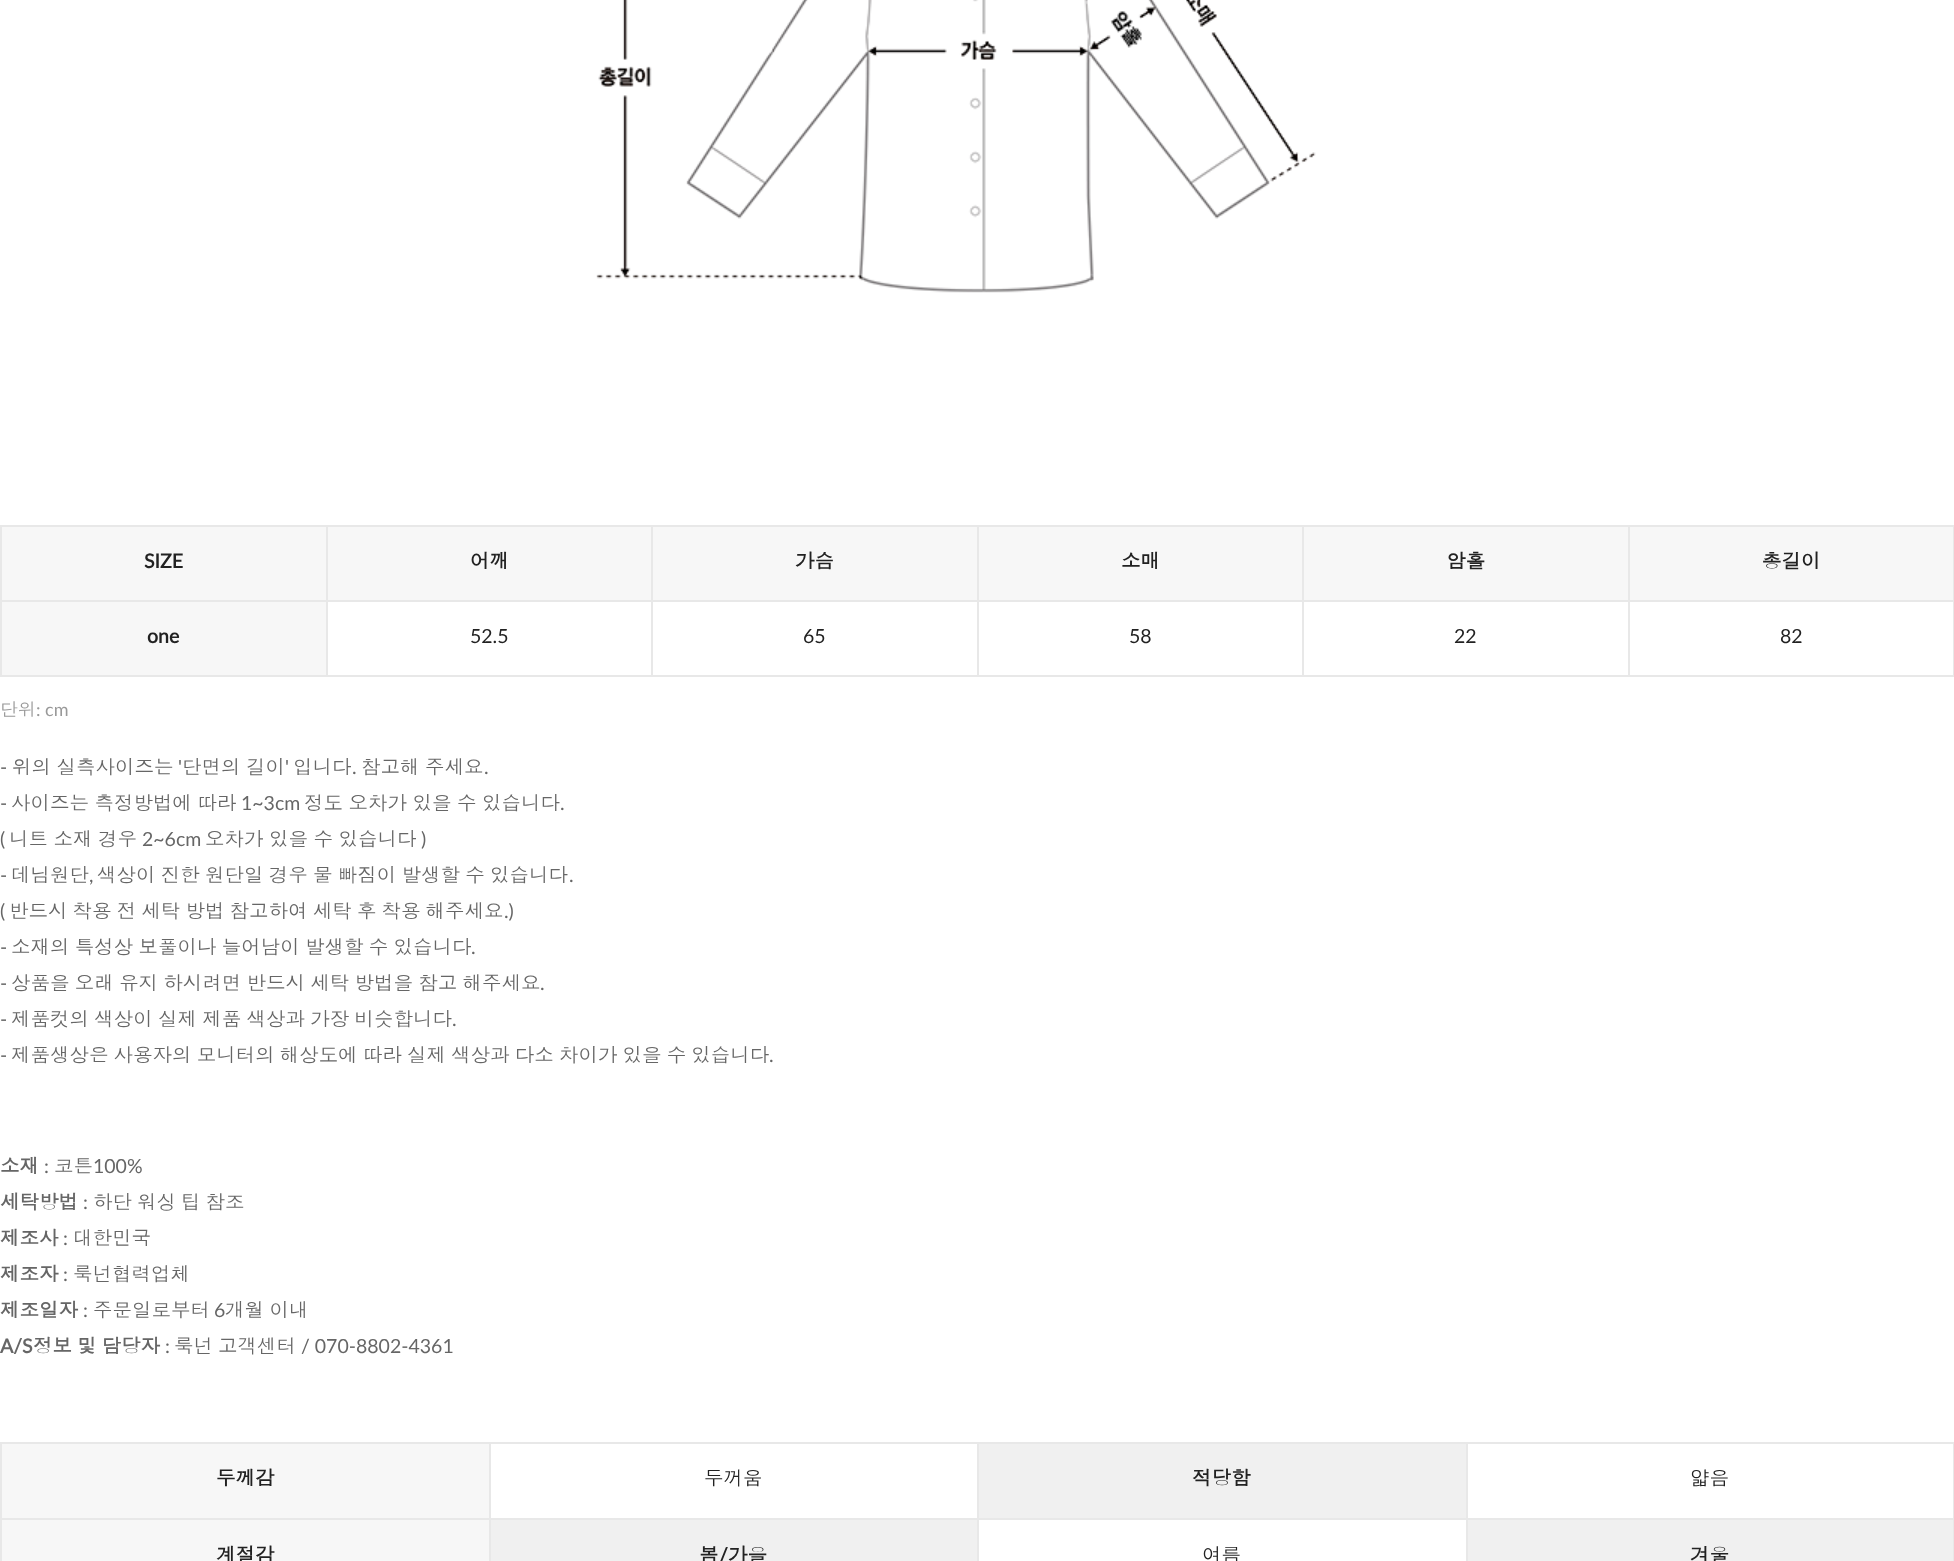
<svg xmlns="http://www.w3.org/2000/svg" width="1954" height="1561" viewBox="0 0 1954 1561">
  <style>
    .t1 { font: bold 19.5px Lato; fill: #222; }
    .t2 { font: bold 19.5px Dotum; fill: #222; }
    .t3 { font: 19.5px Lato; fill: #222; }
    .t4 { font: 18px Dotum; fill: #999; }
    .t5 { font: 18px Lato; fill: #999; }
    .t6 { font: 19.5px Dotum; fill: #666; }
    .t7 { font: 19.5px Lato; fill: #666; }
    .t8 { font: bold 19.5px Dotum; fill: #666; }
    .t9 { font: bold 19.5px Lato; fill: #666; }
    .t10 { font: 19.5px Dotum; fill: #222; }
  </style>
  <rect width="100%" height="100%" fill="#fff"/>
  <image x="596" y="0" width="720" height="293" href="images/1.png"/>
  <rect x="0" y="525" width="1954" height="2" fill="#e8e8e8"/>
  <rect x="1953" y="525" width="1" height="152" fill="#e8e8e8"/>
  <rect x="0" y="675" width="1954" height="2" fill="#e8e8e8"/>
  <rect x="0" y="525" width="2" height="152" fill="#e8e8e8"/>
  <rect x="2" y="527" width="1951" height="73" fill="#f7f7f7"/>
  <text x="144" y="568" class="t1">SIZE</text>
  <rect x="1628" y="600" width="326" height="2" fill="#e8e8e8"/>
  <rect x="1628" y="600" width="2" height="77" fill="#e8e8e8"/>
  <rect x="1302" y="600" width="327" height="2" fill="#e8e8e8"/>
  <rect x="1302" y="600" width="2" height="77" fill="#e8e8e8"/>
  <rect x="977" y="600" width="327" height="2" fill="#e8e8e8"/>
  <rect x="977" y="600" width="2" height="77" fill="#e8e8e8"/>
  <rect x="651" y="600" width="327" height="2" fill="#e8e8e8"/>
  <rect x="651" y="600" width="2" height="77" fill="#e8e8e8"/>
  <rect x="326" y="600" width="327" height="2" fill="#e8e8e8"/>
  <rect x="326" y="600" width="2" height="77" fill="#e8e8e8"/>
  <rect x="0" y="600" width="327" height="2" fill="#e8e8e8"/>
  <rect x="326" y="525" width="2" height="77" fill="#e8e8e8"/>
  <text x="470" y="568" class="t2">어깨</text>
  <rect x="651" y="525" width="2" height="77" fill="#e8e8e8"/>
  <text x="795" y="568" class="t2">가슴</text>
  <rect x="977" y="525" width="2" height="77" fill="#e8e8e8"/>
  <text x="1121" y="568" class="t2">소매</text>
  <rect x="1302" y="525" width="2" height="77" fill="#e8e8e8"/>
  <text x="1446" y="568" class="t2">암홀</text>
  <rect x="1628" y="525" width="2" height="77" fill="#e8e8e8"/>
  <text x="1762" y="568" class="t2">총길이</text>
  <rect x="2" y="602" width="324" height="73" fill="#f7f7f7"/>
  <text x="147" y="643" class="t1">one</text>
  <text x="470" y="643" class="t3">52.5</text>
  <text x="803" y="643" class="t3">65</text>
  <text x="1129" y="643" class="t3">58</text>
  <text x="1454" y="643" class="t3">22</text>
  <text x="1780" y="643" class="t3">82</text>
  <text x="0" y="716" class="t4">단위</text>
  <text x="36" y="716" class="t5">: cm</text>
  <text x="12" y="774" word-spacing="-1" class="t6">위의 실측사이즈는</text>
  <text x="178" y="774" class="t7">'</text>
  <text x="182" y="774" word-spacing="-1" class="t6">단면의 길이</text>
  <text x="285" y="774" class="t7">'</text>
  <text x="293" y="774" class="t6">입니다</text>
  <text x="361" y="774" word-spacing="-1" class="t6">참고해 주세요</text>
  <text x="0" y="774" class="t7">-</text>
  <text x="352" y="774" class="t7">.</text>
  <text x="484" y="774" class="t7">.</text>
  <text x="0" y="810" class="t7">-</text>
  <text x="11" y="810" word-spacing="-1" class="t6">사이즈는 측정방법에 따라</text>
  <text x="241" y="810" class="t7">1~3cm</text>
  <text x="304" y="810" word-spacing="-1" class="t6">정도 오차가 있을 수 있습니다</text>
  <text x="560" y="810" class="t7">.</text>
  <text x="0" y="846" class="t7">(</text>
  <text x="9" y="846" word-spacing="-1" class="t6">니트 소재 경우</text>
  <text x="142" y="846" class="t7">2~6cm</text>
  <text x="205" y="846" word-spacing="-1" class="t6">오차가 있을 수 있습니다</text>
  <text x="421" y="846" class="t7">)</text>
  <text x="0" y="882" class="t7">-</text>
  <text x="11" y="882" class="t6">데님원단</text>
  <text x="97" y="882" word-spacing="-1.25" class="t6">색상이 진한 원단일 경우 물 빠짐이 발생할 수 있습니다</text>
  <text x="89" y="882" class="t7">,</text>
  <text x="569" y="882" class="t7">.</text>
  <text x="0" y="918" class="t7">(</text>
  <text x="9" y="918" word-spacing="-1.4" class="t6">반드시 착용 전 세탁 방법 참고하여 세탁 후 착용 해주세요</text>
  <text x="504" y="918" class="t7">.)</text>
  <text x="0" y="954" class="t7">-</text>
  <text x="11" y="954" word-spacing="-1.25" class="t6">소재의 특성상 보풀이나 늘어남이 발생할 수 있습니다</text>
  <text x="471" y="954" class="t7">.</text>
  <text x="0" y="990" class="t7">-</text>
  <text x="11" y="990" word-spacing="-1.25" class="t6">상품을 오래 유지 하시려면 반드시 세탁 방법을 참고 해주세요</text>
  <text x="540" y="990" class="t7">.</text>
  <text x="0" y="1026" class="t7">-</text>
  <text x="11" y="1026" word-spacing="-1.25" class="t6">제품컷의 색상이 실제 제품 색상과 가장 비슷합니다</text>
  <text x="452" y="1026" class="t7">.</text>
  <text x="0" y="1062" class="t7">-</text>
  <text x="11" y="1062" word-spacing="-1.4" class="t6">제품생상은 사용자의 모니터의 해상도에 따라 실제 색상과 다소 차이가 있을 수 있습니다</text>
  <text x="769" y="1062" class="t7">.</text>
  <text x="0" y="1173" class="t8">소재</text>
  <text x="44" y="1173" class="t7">:</text>
  <text x="54" y="1173" class="t6">코튼</text>
  <text x="93" y="1173" class="t7">100%</text>
  <text x="0" y="1209" class="t8">세탁방법</text>
  <text x="83" y="1209" class="t7">:</text>
  <text x="93" y="1209" word-spacing="-1.5" class="t6">하단 워싱 팁 참조</text>
  <text x="0" y="1245" class="t8">제조사</text>
  <text x="63" y="1245" class="t7">:</text>
  <text x="73" y="1245" class="t6">대한민국</text>
  <text x="0" y="1281" class="t8">제조자</text>
  <text x="63" y="1281" class="t7">:</text>
  <text x="73" y="1281" class="t6">룩넌협력업체</text>
  <text x="0" y="1317" class="t8">제조일자</text>
  <text x="83" y="1317" class="t7">:</text>
  <text x="93" y="1317" class="t6">주문일로부터</text>
  <text x="214" y="1317" class="t7">6</text>
  <text x="225" y="1317" word-spacing="-1" class="t6">개월 이내</text>
  <text x="0" y="1353" class="t9">A/S</text>
  <text x="33" y="1353" word-spacing="-1.5" class="t8">정보 및 담당자</text>
  <text x="165" y="1353" class="t7">:</text>
  <text x="174" y="1353" class="t6">룩넌</text>
  <text x="218" y="1353" class="t6">고객센터</text>
  <text x="301" y="1353" class="t7">/ 070-8802-4361</text>
  <rect x="0" y="1442" width="1954" height="2" fill="#e8e8e8"/>
  <rect x="1953" y="1442" width="1" height="119" fill="#e8e8e8"/>
  <rect x="0" y="1442" width="2" height="119" fill="#e8e8e8"/>
  <rect x="2" y="1444" width="487" height="74" fill="#f7f7f7"/>
  <text x="216" y="1485" class="t2">두께감</text>
  <rect x="1466" y="1518" width="488" height="2" fill="#e8e8e8"/>
  <rect x="1466" y="1518" width="2" height="43" fill="#e8e8e8"/>
  <rect x="977" y="1518" width="490" height="2" fill="#e8e8e8"/>
  <rect x="977" y="1518" width="2" height="43" fill="#e8e8e8"/>
  <rect x="489" y="1518" width="489" height="2" fill="#e8e8e8"/>
  <rect x="489" y="1518" width="2" height="43" fill="#e8e8e8"/>
  <rect x="0" y="1518" width="491" height="2" fill="#e8e8e8"/>
  <rect x="489" y="1442" width="2" height="78" fill="#e8e8e8"/>
  <text x="704" y="1485" class="t10">두꺼움</text>
  <rect x="979" y="1444" width="487" height="74" fill="#f0f0f0"/>
  <rect x="977" y="1442" width="2" height="78" fill="#e8e8e8"/>
  <text x="1192" y="1485" class="t2">적당함</text>
  <rect x="1466" y="1442" width="2" height="78" fill="#e8e8e8"/>
  <text x="1690" y="1485" class="t10">얇음</text>
  <rect x="2" y="1520" width="487" height="41" fill="#f7f7f7"/>
  <text x="216" y="1562" class="t2">계절감</text>
  <rect x="491" y="1520" width="486" height="41" fill="#f0f0f0"/>
  <text x="699" y="1562" class="t2">봄</text>
  <text x="719" y="1562" class="t1">/</text>
  <text x="728" y="1562" class="t2">가을</text>
  <text x="1202" y="1562" class="t10">여름</text>
  <rect x="1468" y="1520" width="485" height="41" fill="#f0f0f0"/>
  <text x="1690" y="1562" class="t2">겨울</text>
</svg>
